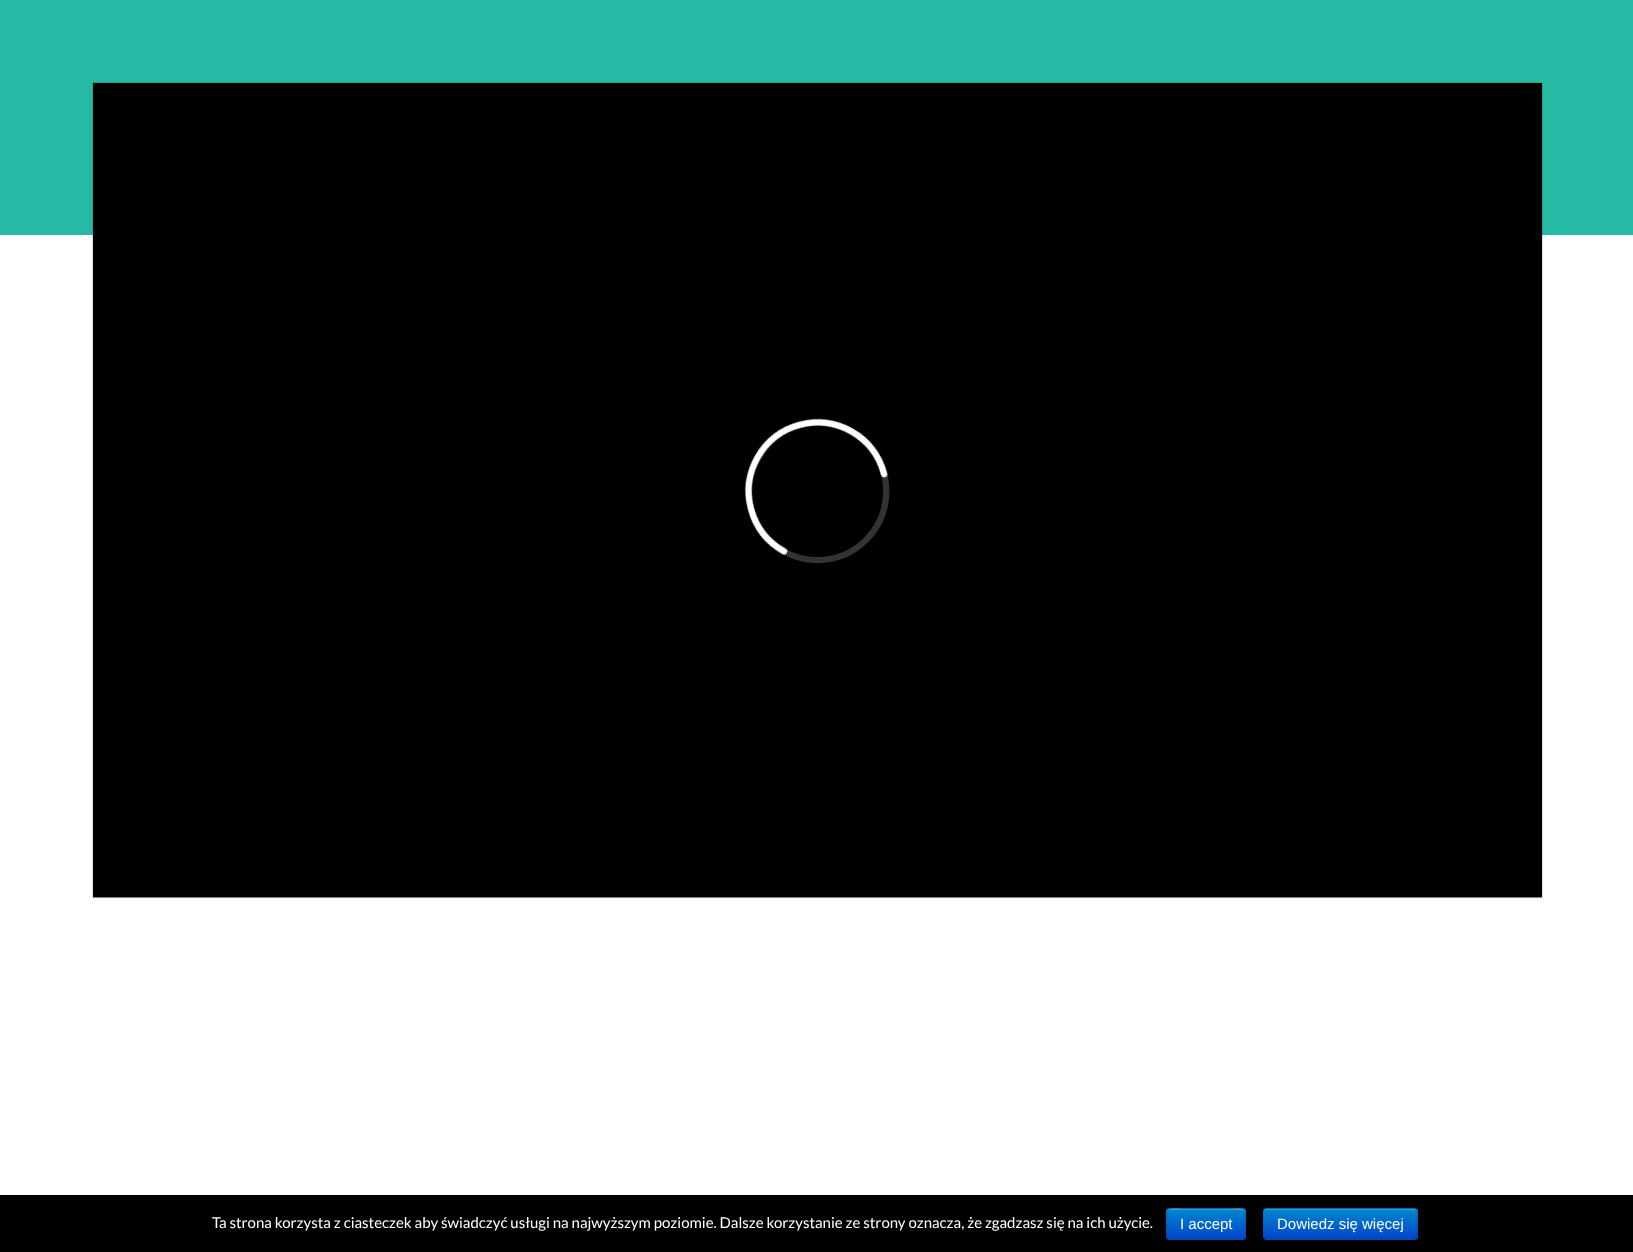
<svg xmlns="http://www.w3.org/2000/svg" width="1633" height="1252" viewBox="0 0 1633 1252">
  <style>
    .t1 { font: 15px Lato; fill: #fff; }
    .t2 { font: 15px Liberation Sans; fill: #fff; }
  </style>
  <defs>
    <clipPath id="clip1"><rect x="1166" y="1208" width="80" height="32" rx="4"/></clipPath>
    <linearGradient id="g1" gradientUnits="userSpaceOnUse" x1="1206" y1="1209" x2="1206" y2="1239"><stop offset="0" stop-color="#08c"/><stop offset="1" stop-color="#04c"/></linearGradient>
    <clipPath id="clip2"><rect x="1263" y="1208" width="155" height="32" rx="4"/></clipPath>
    <linearGradient id="g2" gradientUnits="userSpaceOnUse" x1="1340" y1="1209" x2="1340" y2="1239"><stop offset="0" stop-color="#08c"/><stop offset="1" stop-color="#04c"/></linearGradient>
  </defs>
  <rect width="100%" height="100%" fill="#fff"/>
  <rect x="0" y="0" width="1633" height="235" fill="#26b9a3"/>
  <image x="92" y="82" width="1451" height="816" href="images/1.png"/>
  <rect x="0" y="1195" width="1633" height="57" fill="#000"/>
  <text x="212" y="1228" class="t1">Ta strona korzysta z ciasteczek aby świadczyć usługi na najwyższym poziomie. Dalsze korzystanie ze strony oznacza, że zgadzasz się na ich użycie.</text>
  <rect x="1166" y="1208" width="80" height="32" rx="4" fill="#006dcc"/>
  <g clip-path="url(#clip1)">
    <rect x="1166" y="1209" width="80" height="30" fill="url(#g1)"/>
  </g>
  <path d="M1170 1210H1242C1244 1210 1245 1211 1245 1212C1245 1206 1231 1209 1230 1209H1182C1182 1209 1168 1206 1168 1212C1168 1211 1169 1210 1170 1210Z" fill="#ffffff33"/>
  <path d="M1244.5 1238.5L1243 1239.5H1169.5L1168 1238.5" fill="none" stroke="#00000040" stroke-width="1.2"/>
  <path d="M1168 1238.5C1165.5 1236.5 1167 1226.5 1167 1224C1167 1205.5 1164 1208 1182 1208H1230.5C1248.5 1208 1245.5 1205.5 1245.5 1224C1245.5 1226.5 1247 1236.5 1244.5 1238.5" fill="none" stroke="#0000001a" stroke-width="1.2"/>
  <text x="1180" y="1229" class="t2">I accept</text>
  <rect x="1263" y="1208" width="155" height="32" rx="4" fill="#006dcc"/>
  <g clip-path="url(#clip2)">
    <rect x="1263" y="1209" width="155" height="30" fill="url(#g2)"/>
  </g>
  <path d="M1266 1210H1414C1415 1210 1416 1211 1416 1212C1416 1210 1415 1209 1414 1209H1266C1265 1209 1264 1210 1264 1212C1264 1211 1265 1210 1266 1210Z" fill="#339fd6"/>
  <path d="M1416 1238.5L1414 1239.5H1291H1266L1264 1238.5" fill="none" stroke="#00000040" stroke-width="1.2"/>
  <path d="M1264 1238.5C1262 1236.5 1263 1226.5 1263 1224V1215.5C1263 1213 1262.5 1208 1266 1208H1414C1417.5 1208 1417 1213 1417 1215.5V1224C1417 1226.5 1418 1236.5 1416 1238.5" fill="none" stroke="#0000001a" stroke-width="1.2"/>
  <text x="1277" y="1229" class="t2">Dowiedz się więcej</text>
</svg>
